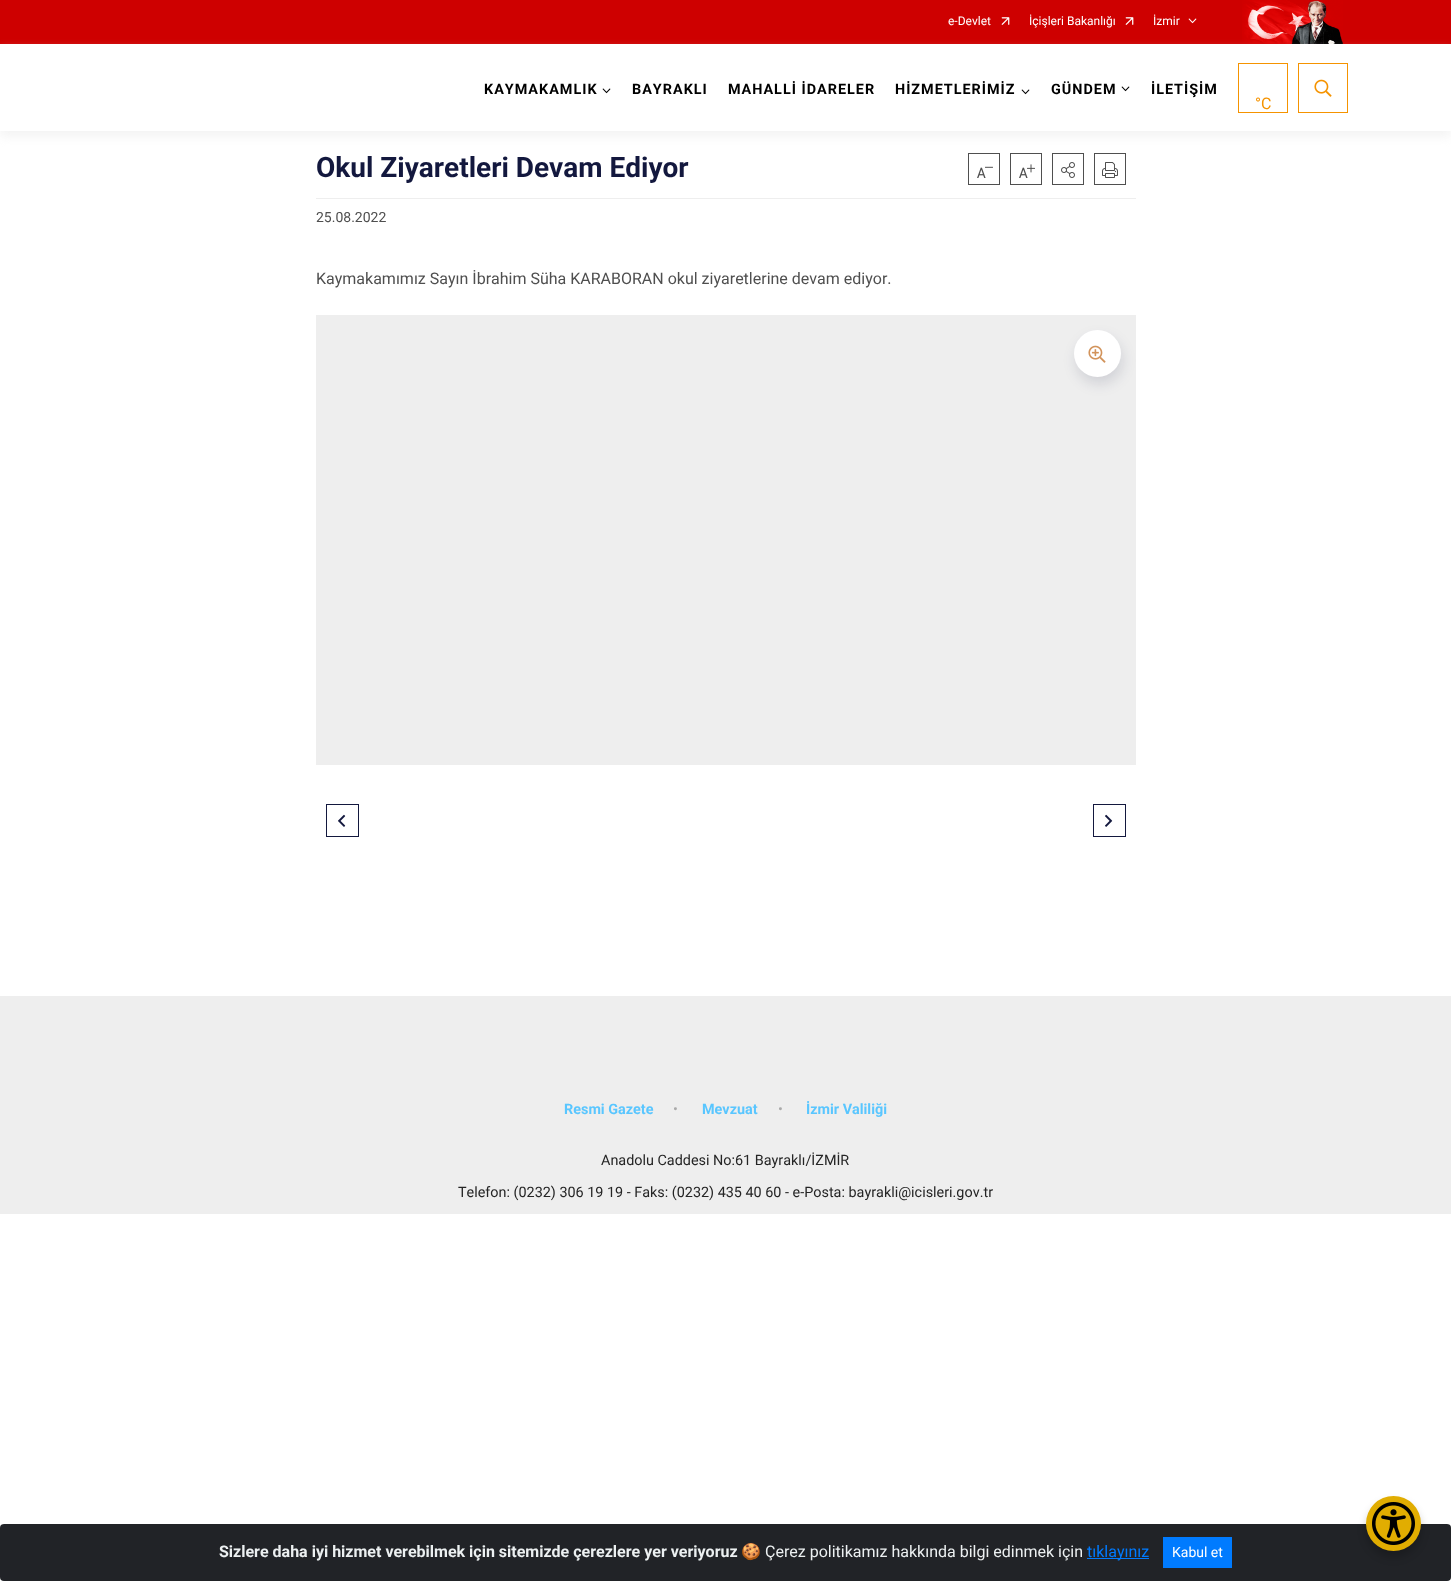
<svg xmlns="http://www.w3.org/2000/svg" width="1451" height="1581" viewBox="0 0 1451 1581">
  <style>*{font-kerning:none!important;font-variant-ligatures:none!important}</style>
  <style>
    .t1 { font: 12px Roboto; fill: #fff; }
    .t2 { font: bold 14.4px Roboto; letter-spacing: 1px; fill: #000; }
    .t3 { font: 16px Roboto; fill: #f59300; }
    .t4 { font: bold 28px Roboto; fill: #13183e; }
    .t5 { font: 14px Roboto; fill: #4f4f4f; }
    .t6 { font: 16px Roboto; fill: #4f4f4f; }
    .t7 { font: bold 14.4px Roboto; fill: #59c6ff; }
    .t8 { font: 14.4px Roboto; fill: #aaa; }
    .t9 { font: 14.4px Roboto; fill: #252525; }
    .t10 { font: bold 16px Roboto; fill: #ecf0f1; }
    .t11 { font: 16px Noto Color Emoji; fill: #ecf0f1; }
    .t12 { font: 16px Roboto; fill: #ecf0f1; }
    .t13 { font: 16px Roboto; fill: #007bff; }
    .t14 { font: 14px Roboto; fill: #fff; }
  </style>
  <defs>
    <clipPath id="clip1"><path d="M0 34H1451V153H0ZM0 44H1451V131H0Z" clip-rule="evenodd"/></clipPath>
  </defs>
  <rect width="100%" height="100%" fill="#fff"/>
  <rect x="0" y="0" width="1451" height="44" fill="#ce0000"/>
  <text x="948" y="25" class="t1">e-Devlet</text>
  <image x="1001" y="17" width="9" height="8" href="images/1.png"/>
  <text x="1029" y="25" class="t1">İçişleri Bakanlığı</text>
  <image x="1125" y="17" width="9" height="8" href="images/1.png"/>
  <text x="1153" y="25" class="t1">İzmir</text>
  <image x="1188" y="18" width="9" height="6" href="images/2.png"/>
  <image x="1242" y="0" width="101" height="44" href="images/3.png"/>
  <g clip-path="url(#clip1)">
    <rect x="0" y="50" width="1451" height="87" fill="#eeeeee9e" filter="blur(5px)"/>
  </g>
  <text x="484" y="94" class="t2">KAYMAKAMLIK</text>
  <image x="602" y="88" width="9" height="6" href="images/4.png"/>
  <text x="632" y="94" class="t2">BAYRAKLI</text>
  <text x="728" y="94" class="t2">MAHALLİ İDARELER</text>
  <text x="895" y="94" class="t2">HİZMETLERİMİZ</text>
  <image x="1021" y="89" width="9" height="6" href="images/4.png"/>
  <text x="1051" y="94" class="t2">GÜNDEM</text>
  <image x="1121" y="86" width="9" height="6" href="images/4.png"/>
  <text x="1151" y="94" class="t2">İLETİŞİM</text>
  <rect x="1238.5" y="63.5" width="49" height="49" fill="none" stroke="#f59300"/>
  <text x="1255" y="109" class="t3">°C</text>
  <rect x="1298.5" y="63.5" width="49" height="49" fill="none" stroke="#f59300"/>
  <image x="1314" y="79" width="18" height="18" href="images/5.png"/>
  <rect x="316" y="198" width="820" height="1" fill="#eee"/>
  <text x="316" y="177" class="t4">Okul Ziyaretleri Devam Ediyor</text>
  <rect x="968.5" y="153.5" width="31" height="31" fill="none" stroke="#4f4f4f"/>
  <image x="977" y="166" width="16" height="12" href="images/6.png"/>
  <rect x="1010.5" y="153.5" width="31" height="31" fill="none" stroke="#4f4f4f"/>
  <image x="1019" y="164" width="16" height="14" href="images/7.png"/>
  <rect x="1052.5" y="153.5" width="31" height="31" fill="none" stroke="#4f4f4f"/>
  <image x="1061" y="162" width="14" height="16" href="images/8.png"/>
  <rect x="1094.5" y="153.5" width="31" height="31" fill="none" stroke="#4f4f4f"/>
  <image x="1102" y="162" width="16" height="16" href="images/9.png"/>
  <text x="316" y="222" class="t5">25.08.2022</text>
  <text x="316" y="284" class="t6">Kaymakamımız Sayın İbrahim Süha KARABORAN okul ziyaretlerine devam ediyor.</text>
  <rect x="316" y="315" width="820" height="450" fill="#eee"/>
  <rect x="1076" y="337" width="47" height="47" rx="23.5" fill="#13183e21" filter="blur(6.5px)"/>
  <circle cx="1097.5" cy="353.5" r="23.5" fill="#fff"/>
  <image x="1088" y="345" width="18" height="18" href="images/10.png"/>
  <rect x="326.5" y="804.5" width="32" height="32" fill="none" stroke="#13183e"/>
  <image x="338" y="814" width="8" height="13" href="images/11.png"/>
  <rect x="1093.5" y="804.5" width="32" height="32" fill="none" stroke="#13183e"/>
  <image x="1105" y="814" width="8" height="13" href="images/12.png"/>
  <rect x="0" y="996" width="1451" height="218" fill="#eee"/>
  <text x="564" y="1114" class="t7">Resmi Gazete</text>
  <text x="673" y="1114" class="t8">•</text>
  <text x="702" y="1114" class="t7">Mevzuat</text>
  <text x="778" y="1114" class="t8">•</text>
  <text x="806" y="1114" class="t7">İzmir Valiliği</text>
  <text x="601" y="1165" class="t9">Anadolu Caddesi No:61 Bayraklı/İZMİR</text>
  <text x="458" y="1197" class="t9">Telefon: (0232) 306 19 19 - Faks: (0232) 435 40 60 - e-Posta: bayrakli@icisleri.gov.tr</text>
  <rect x="0" y="1524" width="1451" height="57" rx="4" fill="#212327"/>
  <text x="219" y="1557" class="t10">Sizlere daha iyi hizmet verebilmek için sitemizde çerezlere yer veriyoruz</text>
  <text x="741" y="1557" class="t11">🍪</text>
  <text x="765" y="1557" class="t12">Çerez politikamız hakkında bilgi edinmek için</text>
  <rect x="1087" y="1558" width="62" height="1" fill="#007bff"/>
  <text x="1087" y="1557" class="t13">tıklayınız</text>
  <rect x="1163" y="1537" width="69" height="31" fill="#007bff"/>
  <text x="1172" y="1557" class="t14">Kabul et</text>
  <rect x="1366" y="1502" width="55" height="55" rx="27.5" fill="#00000033" filter="blur(4px)"/>
  <circle cx="1393.5" cy="1523.5" r="27.5" fill="#e1ad01"/>
  <image x="1372" y="1502" width="43" height="43" href="images/13.png"/>
</svg>
